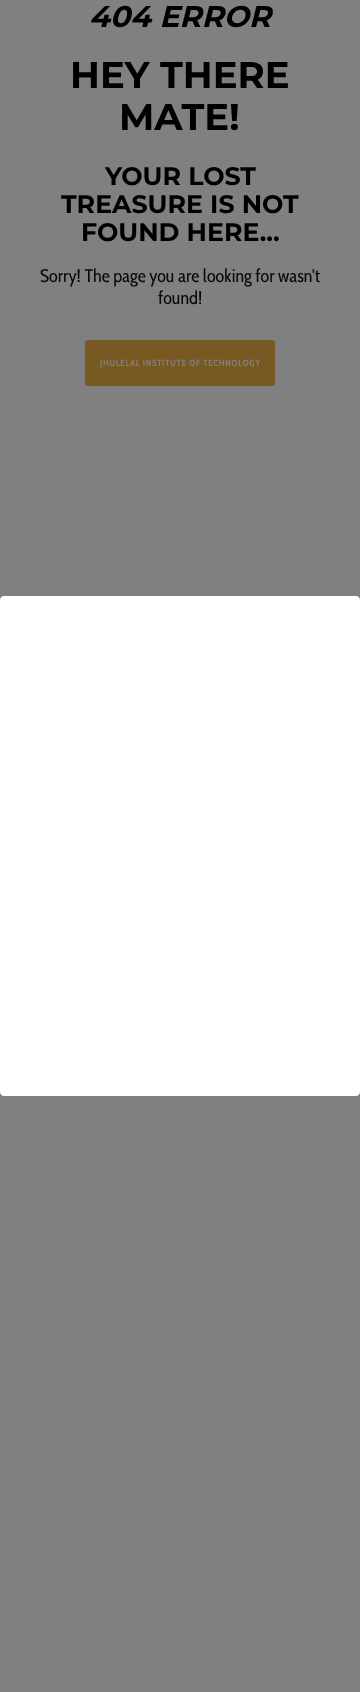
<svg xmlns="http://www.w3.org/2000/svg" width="360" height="1692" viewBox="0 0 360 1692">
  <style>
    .t1 { font: italic 100 30px Montserrat; fill: #000; }
    .t2 { font: 100 37px Montserrat; fill: #000; }
    .t3 { font: 100 25.25px Montserrat; fill: #000; }
    .t4 { font: 18.25px Cabin Condensed; fill: #090909; }
    .t5 { font: bold 9.1px Cabin Condensed; letter-spacing: 0.7px; fill: #808080; }
  </style>
  <rect width="100%" height="100%" fill="#808080"/>
  <text x="89" y="27" class="t1">404 ERROR</text>
  <text x="70" y="88" class="t2">HEY THERE</text>
  <text x="119" y="130" class="t2">MATE!</text>
  <text x="105" y="185" class="t3">YOUR LOST</text>
  <text x="61" y="213" class="t3">TREASURE IS NOT</text>
  <text x="81" y="241" class="t3">FOUND HERE...</text>
  <text x="40" y="282" class="t4">Sorry! The page you are looking for wasn't</text>
  <text x="158" y="304" class="t4">found!</text>
  <rect x="85" y="340" width="190" height="46" rx="3" fill="#795922"/>
  <text x="100" y="366" class="t5">JHULELAL INSTITUTE OF TECHNOLOGY</text>
  <rect x="0.5" y="596.5" width="359" height="499" rx="3.5" fill="#fff" stroke="#fff"/>
</svg>
